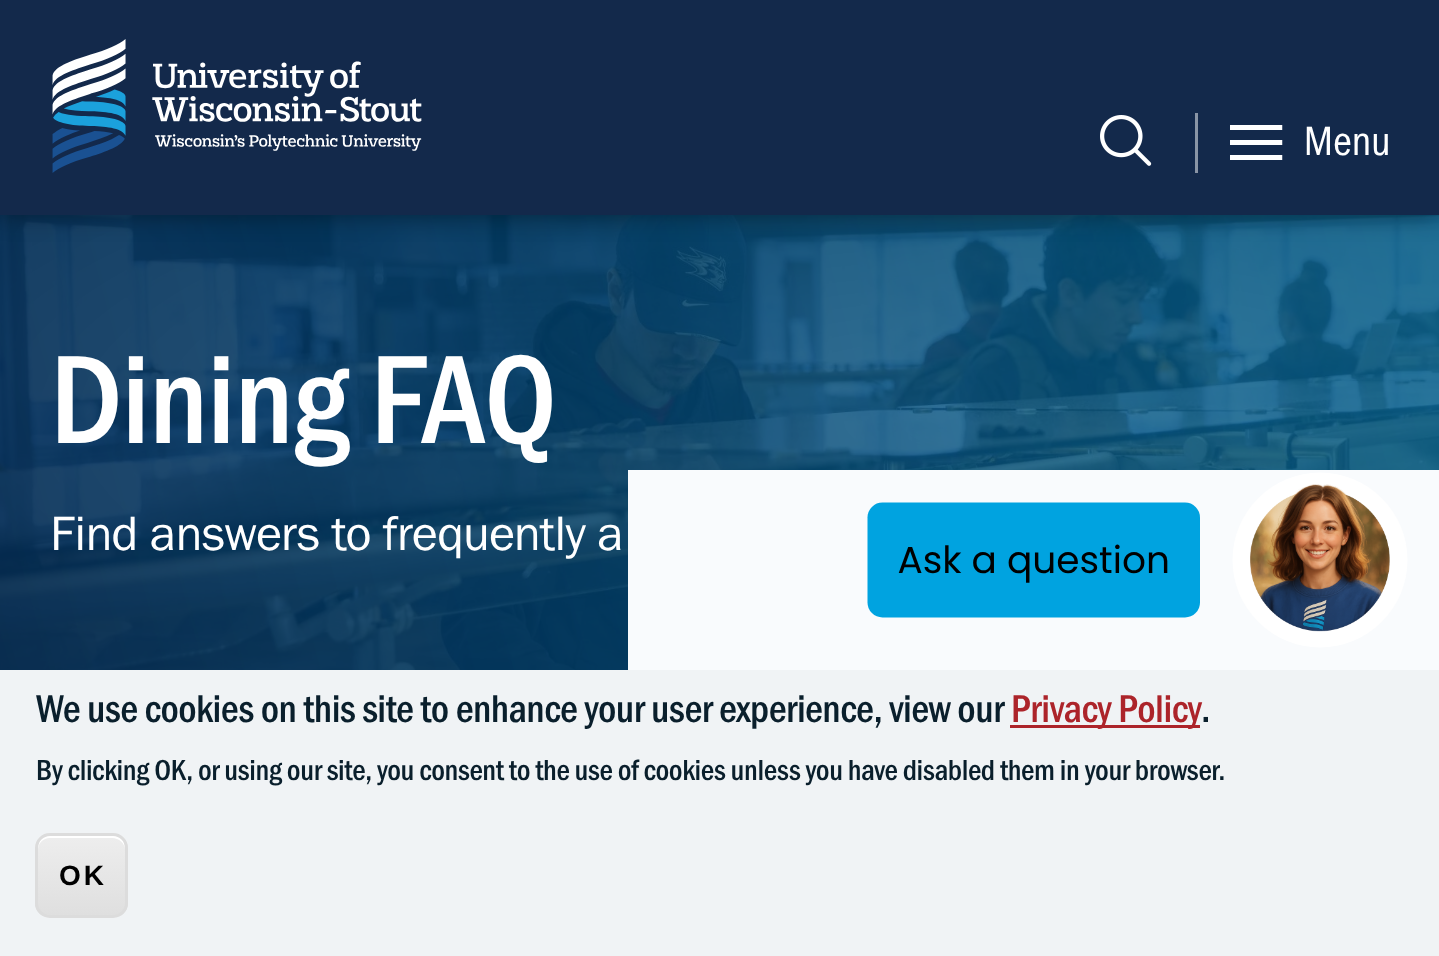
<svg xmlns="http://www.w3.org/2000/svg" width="1439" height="956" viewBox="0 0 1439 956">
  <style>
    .t1 { font: 42.5px 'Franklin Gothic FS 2'; fill: #fff; }
    .t2 { font: 500 130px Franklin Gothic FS; letter-spacing: -1.6px; fill: #fff; }
    .t3 { font: 50px Franklin Gothic FS; letter-spacing: -0.6px; fill: #fff; }
    .t4 { font: 500 40px Franklin Gothic FS; letter-spacing: -0.5px; fill: #0a1f2c; }
    .t5 { font: 500 40px Franklin Gothic FS; letter-spacing: -0.5px; fill: #ac242a; }
    .t6 { font: 500 30px Franklin Gothic FS; letter-spacing: -0.38px; fill: #0a1f2c; }
    .t7 { font: bold 28px Liberation Sans; letter-spacing: 3px; fill: #000; }
  </style>
  <defs>
    <clipPath id="clip1"><rect x="35" y="833" width="93" height="85" rx="15"/></clipPath>
    <linearGradient id="g1" gradientUnits="userSpaceOnUse" x1="81" y1="835" x2="81" y2="915"><stop offset="0.05" stop-color="#ededed"/><stop offset="1" stop-color="#dfdfdf"/></linearGradient>
  </defs>
  <rect width="100%" height="100%" fill="#fff"/>
  <image x="0" y="215" width="1439" height="455" href="images/4.png"/>
  <rect x="0" y="0" width="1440" height="215" fill="#00000066" filter="blur(12.5px)"/>
  <rect x="0" y="0" width="1439" height="215" fill="#13294b"/>
  <image x="52" y="39" width="370" height="134" href="images/1.png"/>
  <image x="1100" y="115" width="52" height="51" href="images/2.png"/>
  <rect x="1195" y="113" width="3" height="60" fill="#8994a5"/>
  <image x="1230" y="125" width="53" height="35" href="images/3.png"/>
  <text x="1304" y="155" class="t1">Menu</text>
  <text x="50" y="443" class="t2">Dining FAQ</text>
  <text x="50" y="550" class="t3">Find answers to frequently a</text>
  <image x="628" y="470" width="811" height="200" href="images/5.png"/>
  <rect x="0" y="670" width="1439" height="286" fill="#f0f3f5"/>
  <text x="36" y="722" class="t4">We use cookies on this site to enhance your user experience, view our</text>
  <rect x="1010" y="725" width="190" height="3" fill="#ac242a"/>
  <text x="1011" y="722" class="t5">Privacy Policy</text>
  <text x="1201" y="722" class="t4">.</text>
  <text x="36" y="780" class="t6">By clicking OK, or using our site, you consent to the use of cookies unless you have disabled them in your browser.</text>
  <g clip-path="url(#clip1)">
    <rect x="35" y="835" width="93" height="80" fill="url(#g1)"/>
  </g>
  <path d="M50 838H112C119 838 125 843 125 850C125 834 114 835 102 835H61C49 835 38 834 38 850C38 843 43 838 50 838Z" fill="#fff"/>
  <rect x="36.5" y="834.5" width="90" height="82" rx="13.5" fill="none" stroke="#dcdcdc" stroke-width="3"/>
  <text x="59" y="885" class="t7">OK</text>
</svg>
